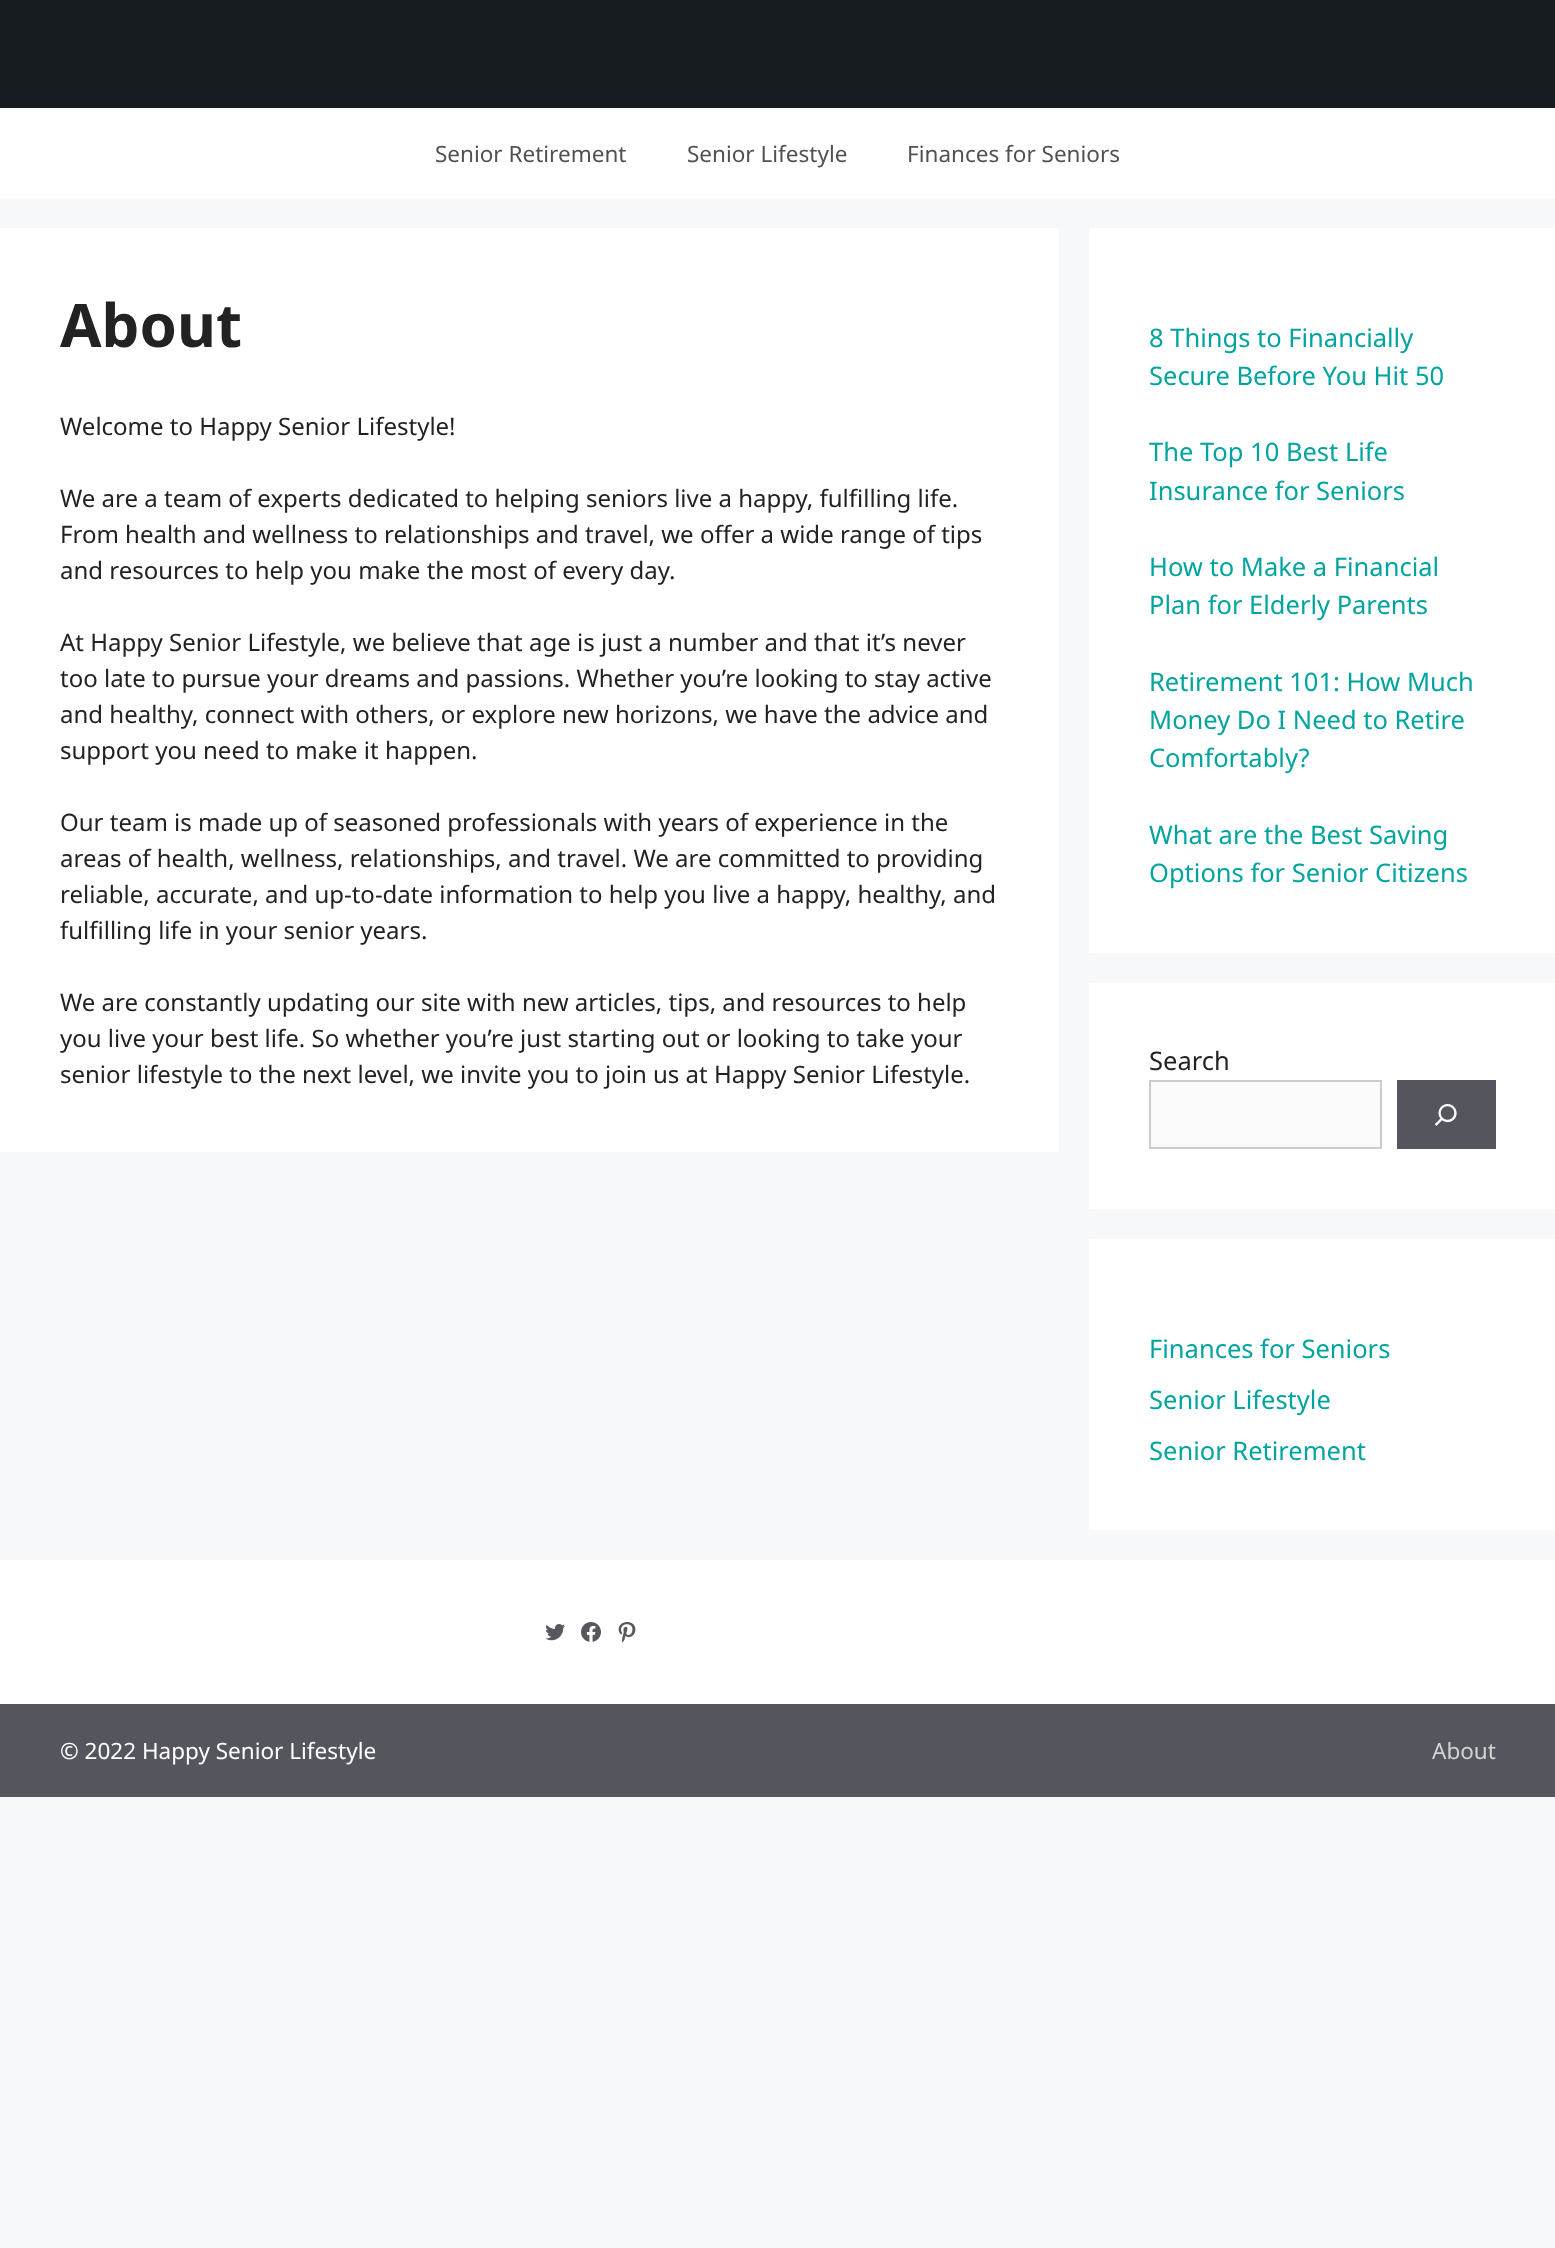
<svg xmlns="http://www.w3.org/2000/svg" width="1555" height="2248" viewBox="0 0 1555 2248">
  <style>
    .t1 { font: 22.5px Noto Sans; fill: #515151; }
    .t2 { font: bold 60px Noto Sans; fill: #222; }
    .t3 { font: 24px Noto Sans; fill: #222; }
    .t4 { font: 25.5px Noto Sans; fill: #00a49f; }
    .t5 { font: 25.5px Noto Sans; fill: #222; }
    .t6 { font: 22.5px Noto Sans; fill: #fff; }
    .t7 { font: 22.5px Noto Sans; fill: #d3d3d3; }
  </style>
  <rect width="100%" height="100%" fill="#f7f8f9"/>
  <rect x="0" y="0" width="1555" height="108" fill="#171c20"/>
  <rect x="0" y="108" width="1555" height="90" fill="#fff"/>
  <text x="435" y="162" class="t1">Senior Retirement</text>
  <text x="687" y="162" class="t1">Senior Lifestyle</text>
  <text x="907" y="162" class="t1">Finances for Seniors</text>
  <rect x="0" y="228" width="1059" height="924" fill="#fff"/>
  <text x="60" y="347" class="t2">About</text>
  <text x="60" y="435" class="t3">Welcome to Happy Senior Lifestyle!</text>
  <text x="60" y="507" class="t3">We are a team of experts dedicated to helping seniors live a happy, fulfilling life.</text>
  <text x="60" y="543" class="t3">From health and wellness to relationships and travel, we offer a wide range of tips</text>
  <text x="60" y="579" class="t3">and resources to help you make the most of every day.</text>
  <text x="60" y="651" class="t3">At Happy Senior Lifestyle, we believe that age is just a number and that it’s never</text>
  <text x="60" y="687" class="t3">too late to pursue your dreams and passions. Whether you’re looking to stay active</text>
  <text x="60" y="723" class="t3">and healthy, connect with others, or explore new horizons, we have the advice and</text>
  <text x="60" y="759" class="t3">support you need to make it happen.</text>
  <text x="60" y="831" class="t3">Our team is made up of seasoned professionals with years of experience in the</text>
  <text x="60" y="867" class="t3">areas of health, wellness, relationships, and travel. We are committed to providing</text>
  <text x="60" y="903" class="t3">reliable, accurate, and up-to-date information to help you live a happy, healthy, and</text>
  <text x="60" y="939" class="t3">fulfilling life in your senior years.</text>
  <text x="60" y="1011" class="t3">We are constantly updating our site with new articles, tips, and resources to help</text>
  <text x="60" y="1047" class="t3">you live your best life. So whether you’re just starting out or looking to take your</text>
  <text x="60" y="1083" class="t3">senior lifestyle to the next level, we invite you to join us at Happy Senior Lifestyle.</text>
  <rect x="1089" y="228" width="466" height="725" fill="#fff"/>
  <text x="1149" y="347" class="t4">8 Things to Financially</text>
  <text x="1149" y="385" class="t4">Secure Before You Hit 50</text>
  <text x="1149" y="461" class="t4">The Top 10 Best Life</text>
  <text x="1149" y="500" class="t4">Insurance for Seniors</text>
  <text x="1149" y="576" class="t4">How to Make a Financial</text>
  <text x="1149" y="614" class="t4">Plan for Elderly Parents</text>
  <text x="1149" y="691" class="t4">Retirement 101: How Much</text>
  <text x="1149" y="729" class="t4">Money Do I Need to Retire</text>
  <text x="1149" y="767" class="t4">Comfortably?</text>
  <text x="1149" y="844" class="t4">What are the Best Saving</text>
  <text x="1149" y="882" class="t4">Options for Senior Citizens</text>
  <rect x="1089" y="983" width="466" height="226" fill="#fff"/>
  <text x="1149" y="1070" class="t5">Search</text>
  <rect x="1150" y="1081" width="231" height="67" fill="#fafafa" stroke="#ccc" stroke-width="2"/>
  <rect x="1397" y="1080" width="99" height="69" fill="#55555e"/>
  <image x="1434" y="1104" width="23" height="22" href="images/1.png"/>
  <rect x="1089" y="1239" width="466" height="291" fill="#fff"/>
  <text x="1149" y="1358" class="t4">Finances for Seniors</text>
  <text x="1149" y="1409" class="t4">Senior Lifestyle</text>
  <text x="1149" y="1460" class="t4">Senior Retirement</text>
  <rect x="0" y="1560" width="1555" height="144" fill="#fff"/>
  <image x="545" y="1624" width="20" height="17" href="images/2.png"/>
  <image x="581" y="1622" width="20" height="20" href="images/3.png"/>
  <image x="618" y="1622" width="18" height="21" href="images/4.png"/>
  <rect x="0" y="1704" width="1555" height="93" fill="#55555e"/>
  <text x="60" y="1759" class="t6">© 2022 Happy Senior Lifestyle</text>
  <text x="1432" y="1759" class="t7">About</text>
</svg>
